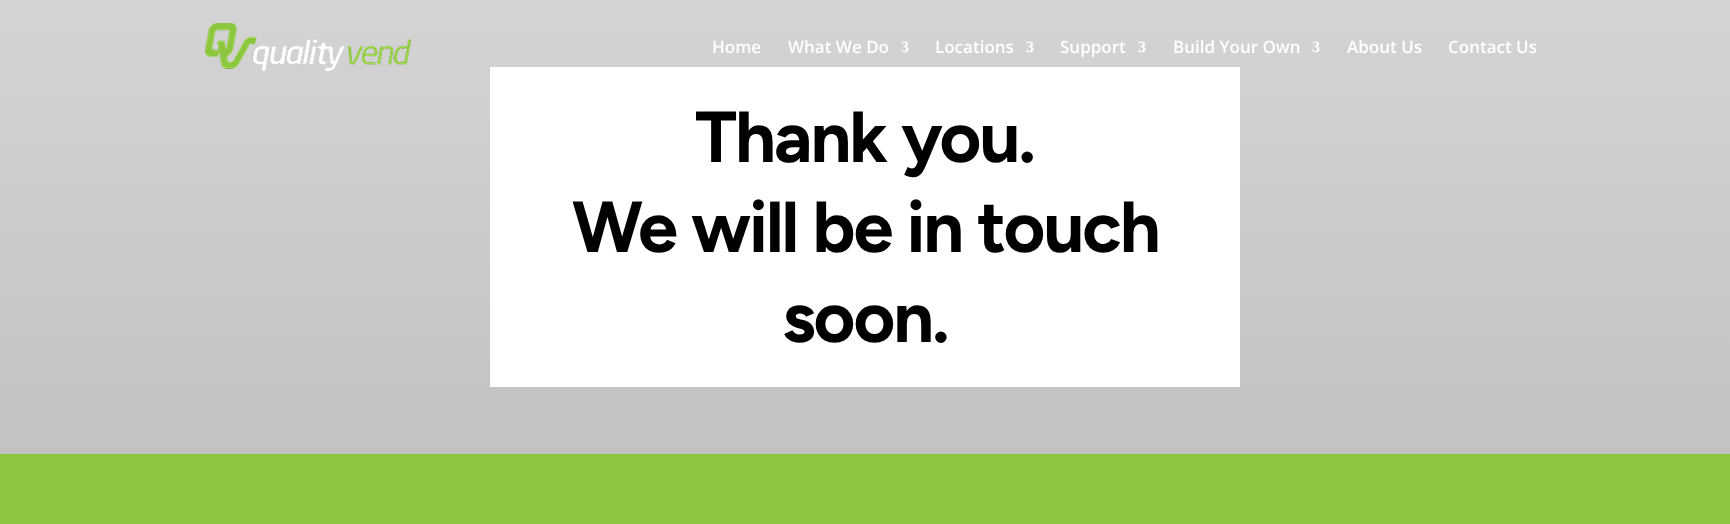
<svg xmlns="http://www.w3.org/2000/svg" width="1730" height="524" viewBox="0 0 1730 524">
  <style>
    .t1 { font: 600 17px Open Sans; fill: #fff; }
    .t2 { font: bold 16px Liberation Serif; fill: #fff; }
    .t3 { font: bold 72px Figtree; letter-spacing: -2px; fill: #000; }
  </style>
  <defs>
    <linearGradient id="g1" gradientUnits="userSpaceOnUse" x1="865" y1="0" x2="865" y2="454"><stop offset="0" stop-color="#d4d4d4"/><stop offset="0.99" stop-color="#c2c2c2"/></linearGradient>
  </defs>
  <rect width="100%" height="100%" fill="#fff"/>
  <rect x="0" y="0" width="1730" height="454" fill="url(#g1)"/>
  <image x="205" y="23" width="206" height="48" href="images/1.png"/>
  <text x="712" y="53" class="t1">Home</text>
  <text x="788" y="53" class="t1">What We Do</text>
  <text x="901" y="52" class="t2">3</text>
  <text x="935" y="53" class="t1">Locations</text>
  <text x="1026" y="52" class="t2">3</text>
  <text x="1060" y="53" class="t1">Support</text>
  <text x="1138" y="52" class="t2">3</text>
  <text x="1173" y="53" class="t1">Build Your Own</text>
  <text x="1312" y="52" class="t2">3</text>
  <text x="1347" y="53" class="t1">About Us</text>
  <text x="1448" y="53" class="t1">Contact Us</text>
  <rect x="490" y="67" width="750" height="320" fill="#fff"/>
  <text x="695" y="162" class="t3">Thank you.</text>
  <text x="572" y="252" class="t3">We will be in touch</text>
  <text x="782" y="342" class="t3">soon.</text>
  <rect x="0" y="454" width="1730" height="70" fill="#8dc63f"/>
</svg>
